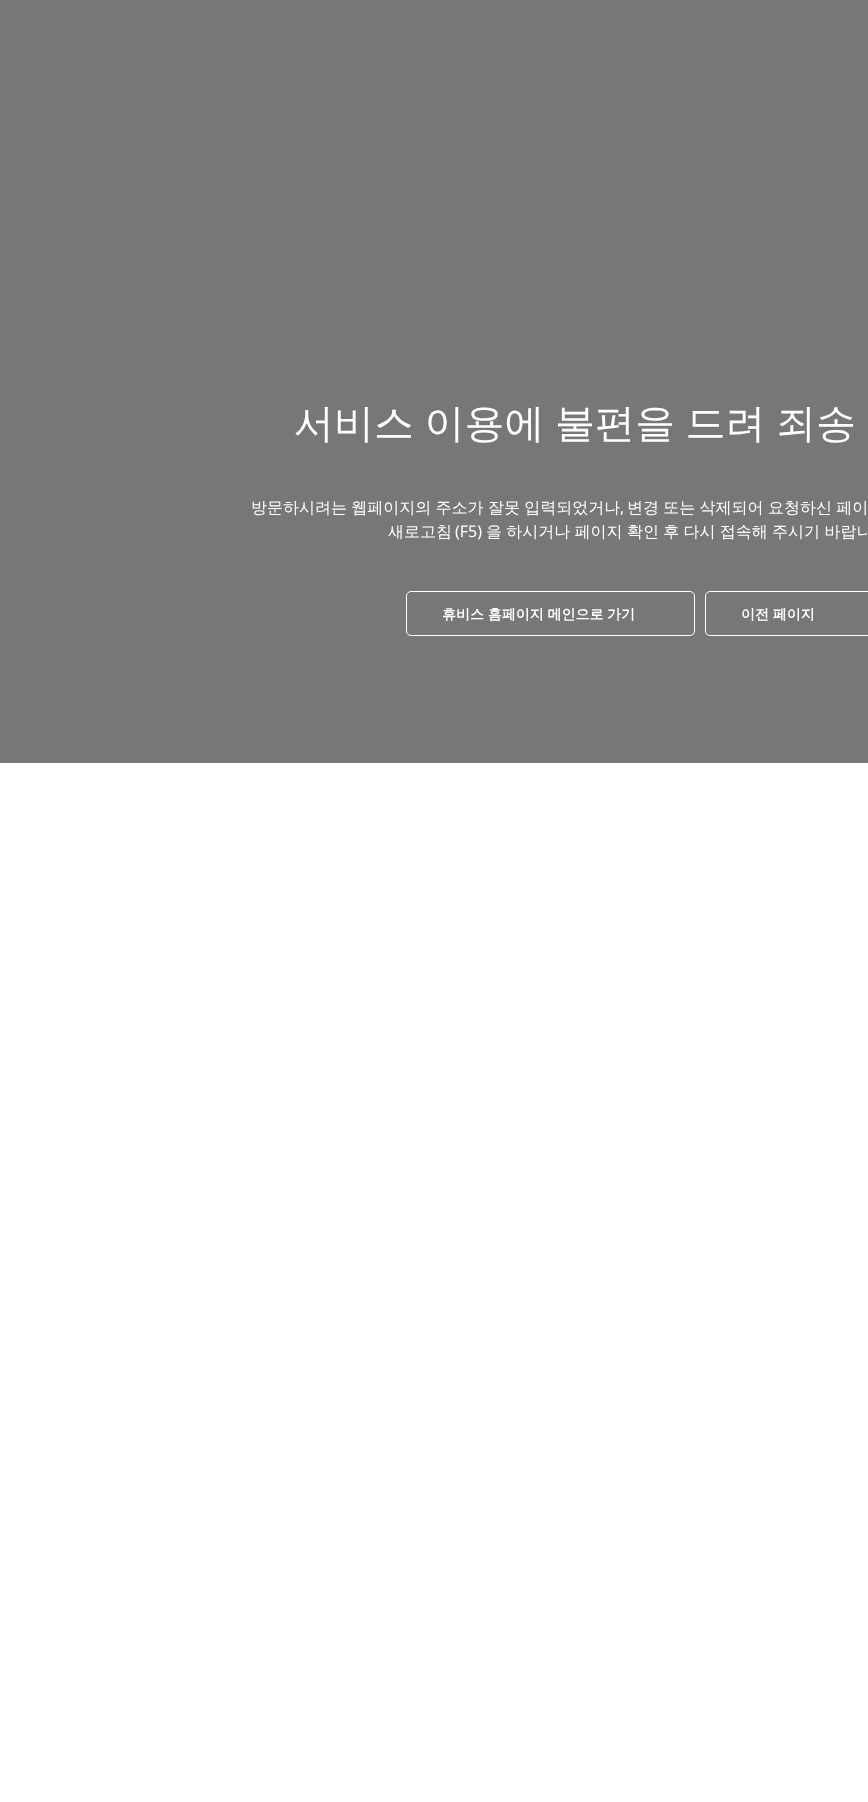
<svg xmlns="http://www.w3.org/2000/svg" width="868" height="1802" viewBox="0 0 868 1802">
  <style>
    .t1 { font: 500 40px WenQuanYi Zen Hei; fill: #fff; }
    .t2 { font: 500 16px WenQuanYi Zen Hei; fill: #fff; }
    .t3 { font: 16px Noto Sans; fill: #fff; }
    .t4 { font: bold 14px WenQuanYi Zen Hei; fill: #fff; }
  </style>
  <rect width="100%" height="100%" fill="#fff"/>
  <rect x="0" y="0" width="868" height="763" fill="#777"/>
  <text x="294" y="437" word-spacing="-1.5" class="t1">서비스 이용에 불편을 드려 죄송</text>
  <text x="251" y="513" word-spacing="-0.5" class="t2">방문하시려는 웹페이지의 주소가 잘못 입력되었거나</text>
  <text x="620" y="513" class="t3">,</text>
  <text x="627" y="513" word-spacing="-0.5" class="t2">변경 또는 삭제되어 요청하신 페이</text>
  <text x="388" y="537" class="t2">새로고침</text>
  <text x="455" y="537" class="t3">(F5)</text>
  <text x="486" y="537" word-spacing="-0.5" class="t2">을 하시거나 페이지 확인 후 다시 접속해 주시기 바랍니</text>
  <rect x="406.5" y="591.5" width="288" height="44" rx="4.5" fill="none" stroke="#fff"/>
  <text x="442" y="619" word-spacing="-0.5" class="t4">휴비스 홈페이지 메인으로 가기</text>
  <rect x="705.5" y="591.5" width="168" height="44" rx="4.5" fill="none" stroke="#fff"/>
  <text x="741" y="619" word-spacing="-0.5" class="t4">이전 페이지</text>
</svg>
